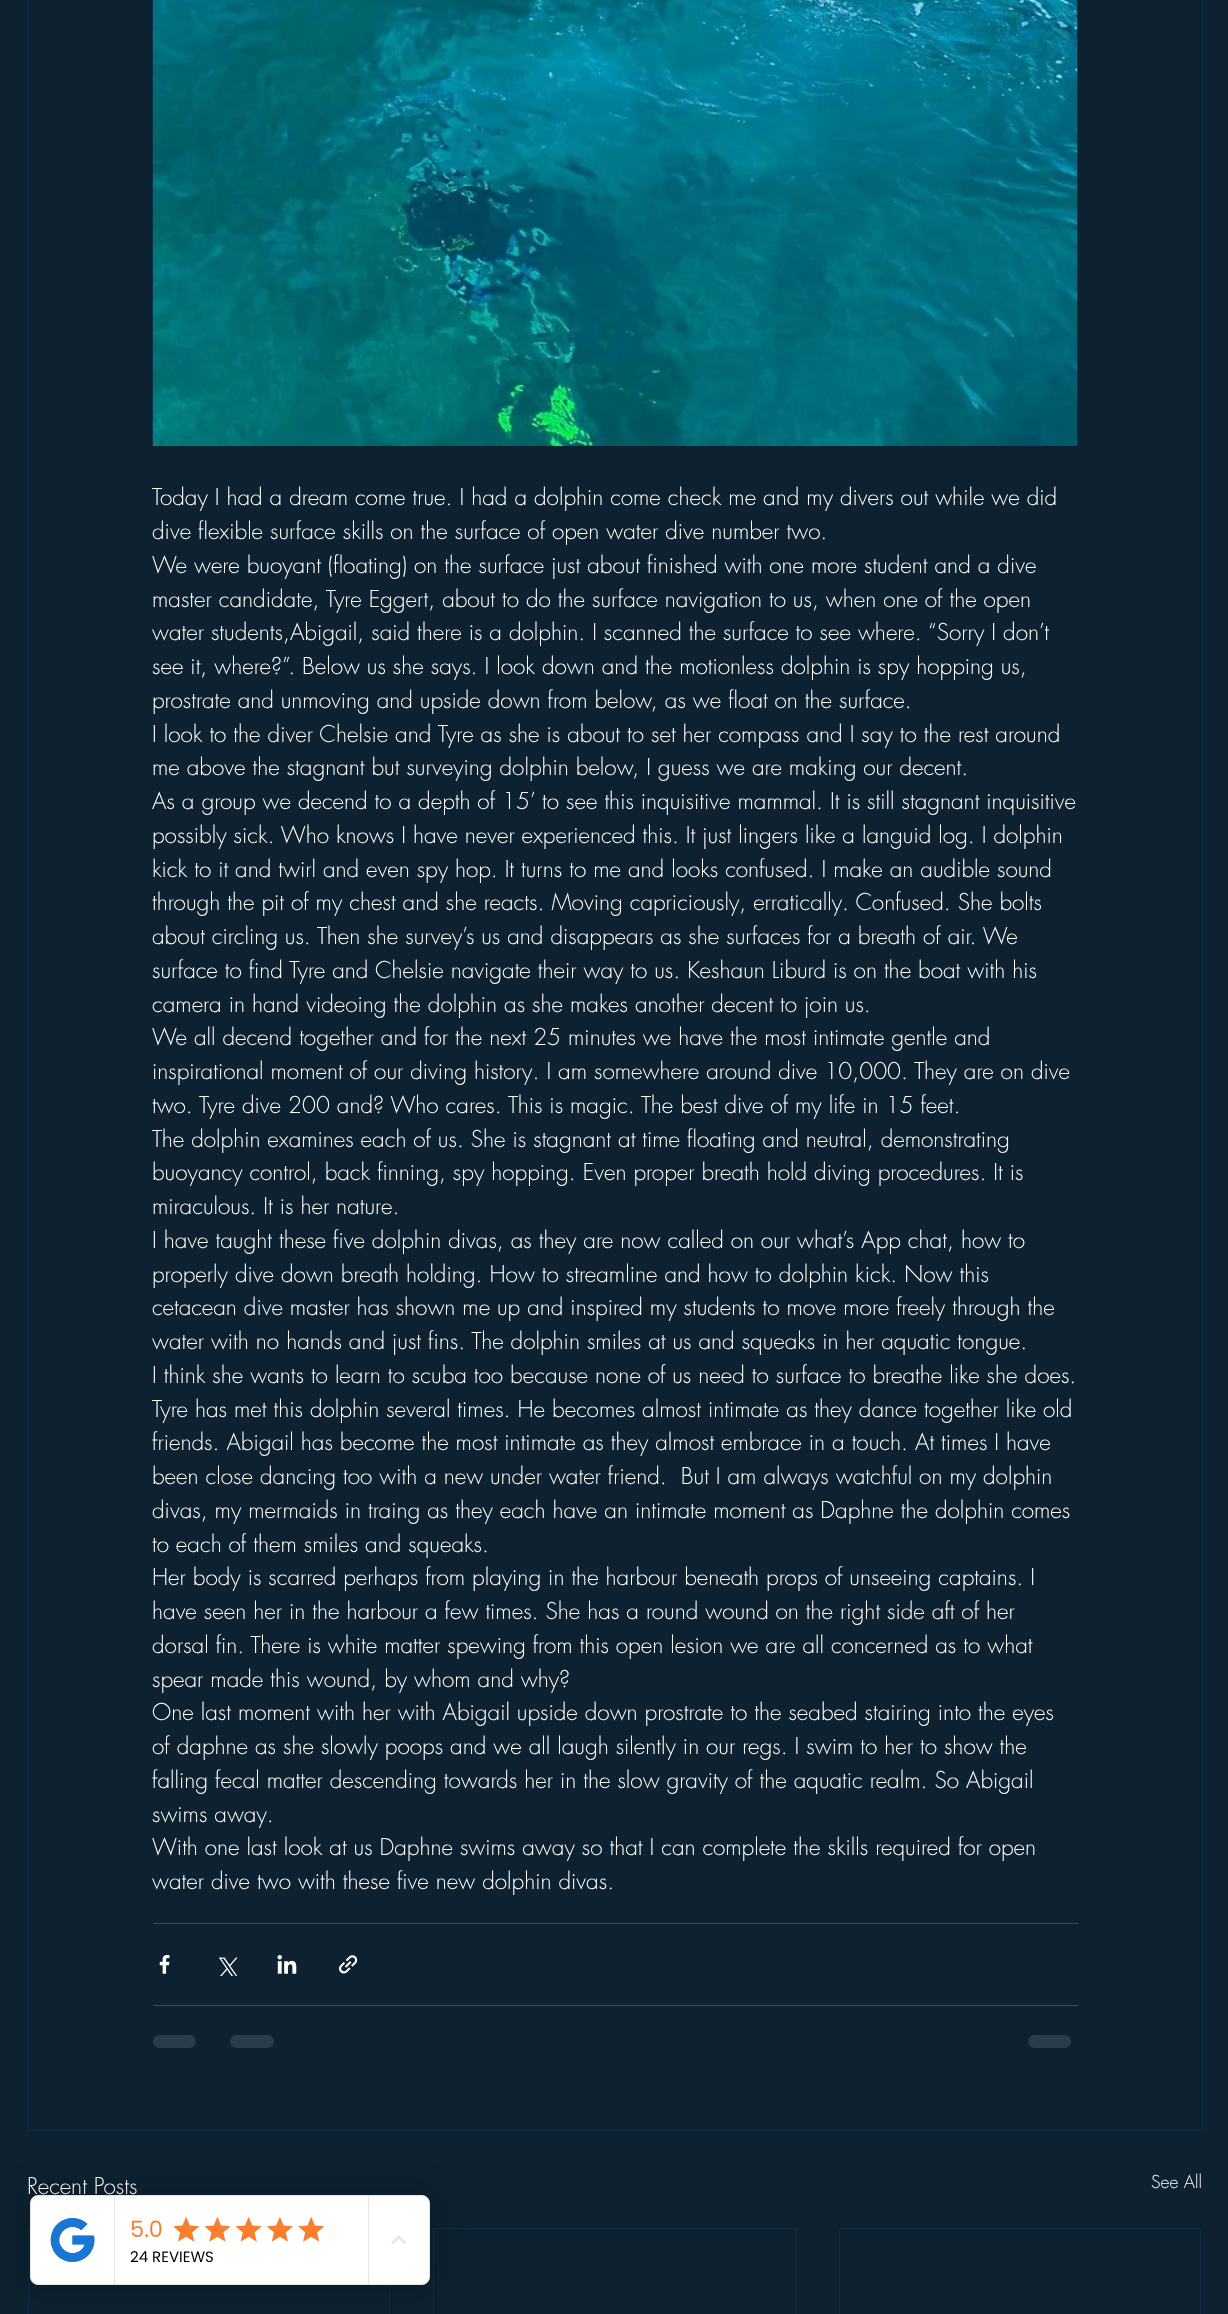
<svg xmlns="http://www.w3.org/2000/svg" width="1228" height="2314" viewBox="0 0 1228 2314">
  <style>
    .t1 { font: 300 22.5px futura; fill: #fff; }
    .t2 { font: 300 17.5px futura; fill: #fff; }
    .t3 { font: 22.5px Poppins; fill: #f7802f; }
    .t4 { font: 15px Poppins; fill: #000; }
  </style>
  <rect width="100%" height="100%" fill="#0d2130"/>
  <rect x="28.5" y="-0.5" width="1174" height="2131" fill="none" stroke="#0e2b41"/>
  <image x="152" y="0" width="926" height="446" href="images/1.png"/>
  <text x="152" y="505" class="t1">Today I had a dream come true. I had a dolphin come check me and my divers out while we did</text>
  <text x="152" y="539" class="t1">dive flexible surface skills on the surface of open water dive number two.</text>
  <text x="152" y="573" class="t1">We were buoyant (floating) on the surface just about finished with one more student and a dive</text>
  <text x="152" y="607" class="t1">master candidate, Tyre Eggert, about to do the surface navigation to us, when one of the open</text>
  <text x="152" y="640" class="t1">water students,Abigail, said there is a dolphin. I scanned the surface to see where. “Sorry I don’t</text>
  <text x="152" y="674" class="t1">see it, where?”. Below us she says. I look down and the motionless dolphin is spy hopping us,</text>
  <text x="152" y="708" class="t1">prostrate and unmoving and upside down from below, as we float on the surface.</text>
  <text x="152" y="742" class="t1">I look to the diver Chelsie and Tyre as she is about to set her compass and I say to the rest around</text>
  <text x="152" y="775" class="t1">me above the stagnant but surveying dolphin below, I guess we are making our decent.</text>
  <text x="152" y="809" class="t1">As a group we decend to a depth of 15’ to see this inquisitive mammal. It is still stagnant inquisitive</text>
  <text x="152" y="843" class="t1">possibly sick. Who knows I have never experienced this. It just lingers like a languid log. I dolphin</text>
  <text x="152" y="877" class="t1">kick to it and twirl and even spy hop. It turns to me and looks confused. I make an audible sound</text>
  <text x="152" y="910" class="t1">through the pit of my chest and she reacts. Moving capriciously, erratically. Confused. She bolts</text>
  <text x="152" y="944" class="t1">about circling us. Then she survey’s us and disappears as she surfaces for a breath of air. We</text>
  <text x="152" y="978" class="t1">surface to find Tyre and Chelsie navigate their way to us. Keshaun Liburd is on the boat with his</text>
  <text x="152" y="1012" class="t1">camera in hand videoing the dolphin as she makes another decent to join us.</text>
  <text x="152" y="1045" class="t1">We all decend together and for the next 25 minutes we have the most intimate gentle and</text>
  <text x="152" y="1079" class="t1">inspirational moment of our diving history. I am somewhere around dive 10,000. They are on dive</text>
  <text x="152" y="1113" class="t1">two. Tyre dive 200 and? Who cares. This is magic. The best dive of my life in 15 feet.</text>
  <text x="152" y="1147" class="t1">The dolphin examines each of us. She is stagnant at time floating and neutral, demonstrating</text>
  <text x="152" y="1180" class="t1">buoyancy control, back finning, spy hopping. Even proper breath hold diving procedures. It is</text>
  <text x="152" y="1214" class="t1">miraculous. It is her nature.</text>
  <text x="152" y="1248" class="t1">I have taught these five dolphin divas, as they are now called on our what’s App chat, how to</text>
  <text x="152" y="1282" class="t1">properly dive down breath holding. How to streamline and how to dolphin kick. Now this</text>
  <text x="152" y="1315" class="t1">cetacean dive master has shown me up and inspired my students to move more freely through the</text>
  <text x="152" y="1349" class="t1">water with no hands and just fins. The dolphin smiles at us and squeaks in her aquatic tongue.</text>
  <text x="152" y="1383" class="t1">I think she wants to learn to scuba too because none of us need to surface to breathe like she does.</text>
  <text x="152" y="1417" class="t1">Tyre has met this dolphin several times. He becomes almost intimate as they dance together like old</text>
  <text x="152" y="1450" class="t1">friends. Abigail has become the most intimate as they almost embrace in a touch. At times I have</text>
  <text x="152" y="1484" class="t1" xml:space="preserve">been close dancing too with a new under water friend.  But I am always watchful on my dolphin</text>
  <text x="152" y="1518" class="t1">divas, my mermaids in traing as they each have an intimate moment as Daphne the dolphin comes</text>
  <text x="152" y="1552" class="t1">to each of them smiles and squeaks.</text>
  <text x="152" y="1585" class="t1">Her body is scarred perhaps from playing in the harbour beneath props of unseeing captains. I</text>
  <text x="152" y="1619" class="t1">have seen her in the harbour a few times. She has a round wound on the right side aft of her</text>
  <text x="152" y="1653" class="t1">dorsal fin. There is white matter spewing from this open lesion we are all concerned as to what</text>
  <text x="152" y="1687" class="t1">spear made this wound, by whom and why?</text>
  <text x="152" y="1720" class="t1">One last moment with her with Abigail upside down prostrate to the seabed stairing into the eyes</text>
  <text x="152" y="1754" class="t1">of daphne as she slowly poops and we all laugh silently in our regs. I swim to her to show the</text>
  <text x="152" y="1788" class="t1">falling fecal matter descending towards her in the slow gravity of the aquatic realm. So Abigail</text>
  <text x="152" y="1822" class="t1">swims away.</text>
  <text x="152" y="1855" class="t1">With one last look at us Daphne swims away so that I can complete the skills required for open</text>
  <text x="152" y="1889" class="t1">water dive two with these five new dolphin divas.</text>
  <rect x="153" y="1923" width="925" height="1" fill="#3d4d59"/>
  <image x="159" y="1955" width="11" height="19" href="images/2.png"/>
  <image x="218" y="1957" width="20" height="19" href="images/3.png"/>
  <image x="277" y="1955" width="20" height="19" href="images/4.png"/>
  <image x="339" y="1955" width="19" height="19" href="images/5.png"/>
  <rect x="153" y="2005" width="925" height="1" fill="#3d4d59"/>
  <rect x="153" y="2035" width="43" height="13" rx="6.5" fill="#2a3c49"/>
  <rect x="230" y="2035" width="44" height="13" rx="6.5" fill="#2a3c49"/>
  <rect x="1028" y="2035" width="43" height="13" rx="6.5" fill="#2a3c49"/>
  <text x="27" y="2194" class="t1">Recent Posts</text>
  <text x="1151" y="2188" class="t2">See All</text>
  <rect x="28.5" y="2228.5" width="361" height="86" fill="none" stroke="#0e2b41"/>
  <rect x="433.5" y="2228.5" width="362" height="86" fill="none" stroke="#0e2b41"/>
  <rect x="839.5" y="2228.5" width="361" height="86" fill="none" stroke="#0e2b41"/>
  <rect x="23" y="2188" width="415" height="105" rx="15" fill="#0000001f" filter="blur(15px)"/>
  <rect x="30.5" y="2195.5" width="399" height="89" rx="7.5" fill="#fff" stroke="#e5e5e5"/>
  <path d="M39 2196H115V2284H39C34.5 2284 31 2280.5 31 2276V2204C31 2199.5 34.5 2196 39 2196Z" fill="#fff"/>
  <rect x="114" y="2196" width="1" height="88" fill="#e5e5e5"/>
  <image x="50" y="2218" width="45" height="44" href="images/6.png"/>
  <rect x="368" y="2196" width="1" height="88" fill="#e5e5e5"/>
  <text x="130" y="2237" class="t3">5.0</text>
  <image x="173" y="2217" width="26" height="25" href="images/7.png"/>
  <image x="173" y="2217" width="26" height="25" href="images/8.png"/>
  <image x="204" y="2217" width="26" height="25" href="images/9.png"/>
  <image x="204" y="2217" width="27" height="25" href="images/10.png"/>
  <image x="236" y="2217" width="26" height="25" href="images/12.png"/>
  <image x="235" y="2217" width="27" height="25" href="images/11.png"/>
  <image x="267" y="2217" width="26" height="25" href="images/13.png"/>
  <image x="267" y="2217" width="26" height="25" href="images/14.png"/>
  <image x="298" y="2217" width="26" height="25" href="images/7.png"/>
  <image x="298" y="2217" width="26" height="25" href="images/8.png"/>
  <text x="130" y="2262" class="t4">24 REVIEWS</text>
  <image x="391" y="2235" width="15" height="9" href="images/15.png"/>
</svg>
